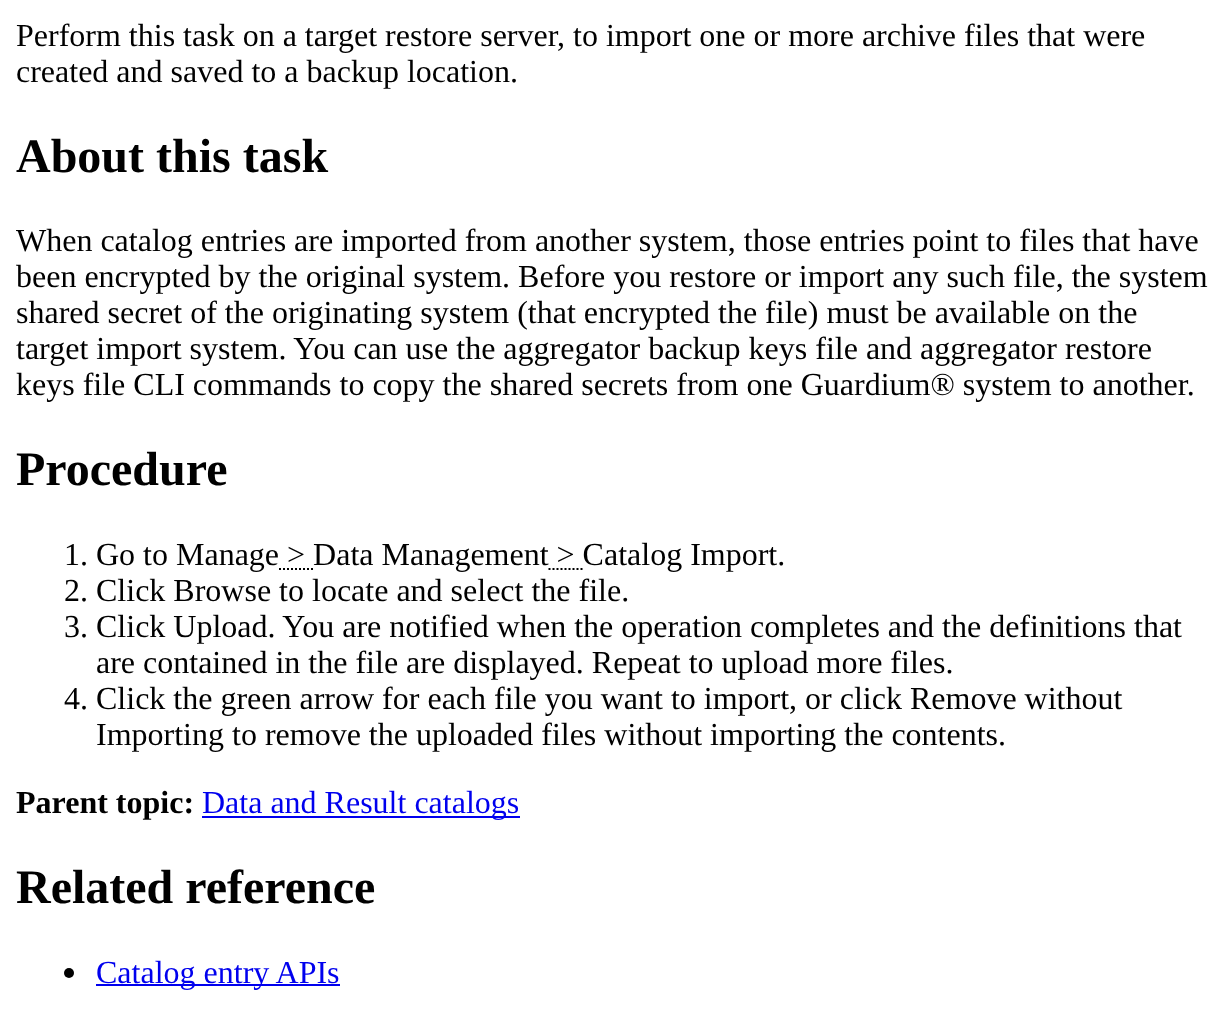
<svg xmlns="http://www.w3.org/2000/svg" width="1229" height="1021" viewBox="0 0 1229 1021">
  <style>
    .t1 { font: 32px Liberation Serif; fill: #000; }
    .t2 { font: bold 48px Liberation Serif; fill: #000; }
    .t3 { font: bold 32px Liberation Serif; fill: #000; }
    .t4 { font: 32px Liberation Serif; fill: #00e; }
  </style>
  <rect width="100%" height="100%" fill="#fff"/>
  <text x="16" y="46" class="t1">Perform this task on a target restore server, to import one or more archive files that were</text>
  <text x="16" y="82" class="t1">created and saved to a backup location.</text>
  <text x="16" y="172" class="t2">About this task</text>
  <text x="16" y="251" class="t1">When catalog entries are imported from another system, those entries point to files that have</text>
  <text x="16" y="287" class="t1">been encrypted by the original system. Before you restore or import any such file, the system</text>
  <text x="16" y="323" class="t1">shared secret of the originating system (that encrypted the file) must be available on the</text>
  <text x="16" y="359" class="t1">target import system. You can use the aggregator backup keys file and aggregator restore</text>
  <text x="16" y="395" class="t1">keys file CLI commands to copy the shared secrets from one Guardium® system to another.</text>
  <text x="16" y="485" class="t2">Procedure</text>
  <text x="64" y="565" class="t1">1. Go to Manage &gt; Data Management &gt; Catalog Import.</text>
  <path d="M279 569H313" fill="none" stroke="#000" stroke-width="2" stroke-dasharray="2 2"/>
  <path d="M548.5 569H582.5" fill="none" stroke="#000" stroke-width="2" stroke-dasharray="2 2"/>
  <text x="64" y="601" class="t1">2. Click Browse to locate and select the file.</text>
  <text x="64" y="637" class="t1">3. Click Upload. You are notified when the operation completes and the definitions that</text>
  <text x="96" y="673" class="t1">are contained in the file are displayed. Repeat to upload more files.</text>
  <text x="64" y="709" class="t1">4. Click the green arrow for each file you want to import, or click Remove without</text>
  <text x="96" y="745" class="t1">Importing to remove the uploaded files without importing the contents.</text>
  <text x="16" y="813" class="t3">Parent topic:</text>
  <rect x="202" y="816" width="318" height="2" fill="#00e"/>
  <text x="202" y="813" class="t4">Data and Result catalogs</text>
  <text x="16" y="903" class="t2">Related reference</text>
  <circle cx="69" cy="973" r="5" fill="#000"/>
  <rect x="96" y="984" width="244" height="2" fill="#00e"/>
  <text x="96" y="983" class="t4">Catalog entry APIs</text>
</svg>
